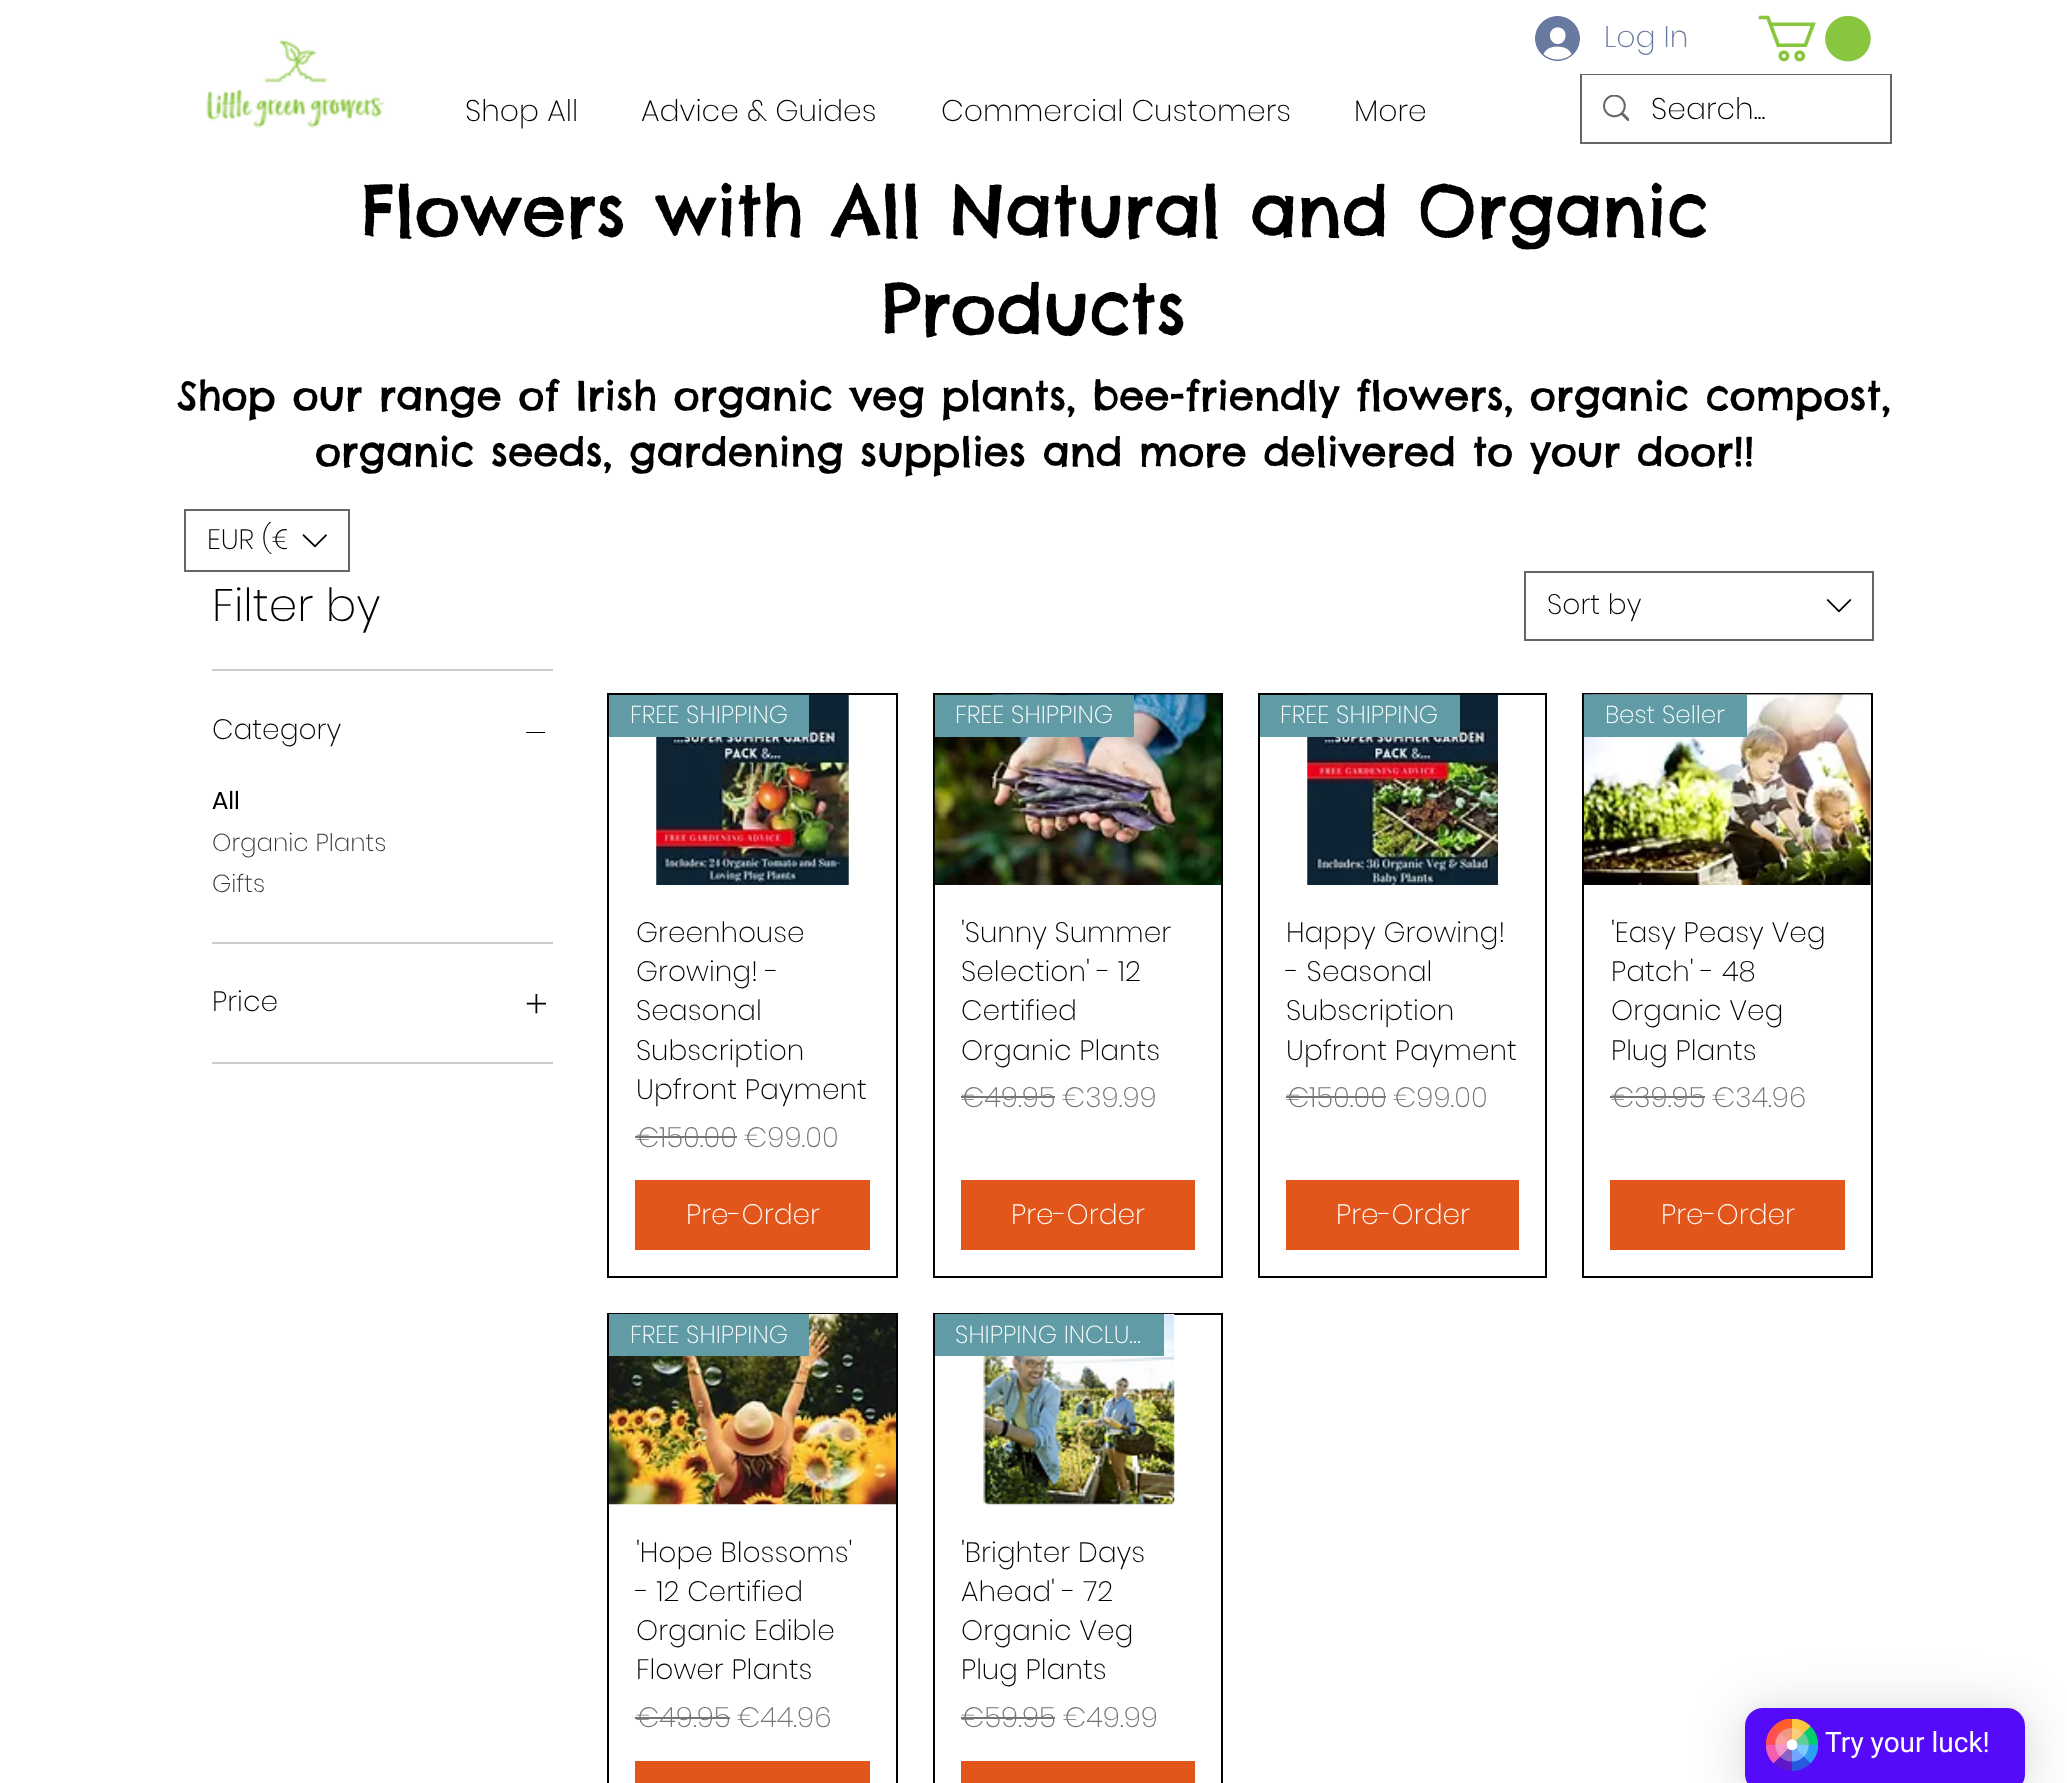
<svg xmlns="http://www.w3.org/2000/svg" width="2067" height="1783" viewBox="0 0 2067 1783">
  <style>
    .t1 { font: 200 29.75px Poppins; fill: #000; }
    .t2 { font: 200 29.75px Poppins; fill: #687aa0; }
    .t3 { font: 70px Chelsea Market; fill: #000; }
    .t4 { font: 40.25px Chelsea Market; fill: #000; }
    .t5 { font: 200 28px Poppins; fill: #000; }
    .t6 { font: 200 45.5px Poppins; fill: #000; }
    .t7 { font: 24.5px Poppins; fill: #000; }
    .t8 { font: 200 24.5px Poppins; fill: #333; }
    .t9 { font: 200 24.5px Poppins; fill: #fff; }
    .t10 { font: 200 28px Poppins; fill: #757575; }
    .t11 { font: 200 28px Poppins; fill: #fff; }
    .t12 { font: 28px Roboto; fill: #fff; }
  </style>
  <defs>
    <clipPath id="clip1"><rect x="207" y="522" width="80" height="38"/></clipPath>
  </defs>
  <rect width="100%" height="100%" fill="#fff"/>
  <image x="206" y="39" width="180" height="89" href="images/1.png"/>
  <text x="465" y="121" class="t1">Shop All</text>
  <text x="641" y="121" class="t1">Advice &amp; Guides</text>
  <text x="941" y="121" class="t1">Commercial Customers</text>
  <text x="1354" y="121" class="t1">More</text>
  <image x="1535" y="16" width="45" height="45" href="images/2.png"/>
  <text x="1604" y="47" class="t2">Log In</text>
  <rect x="1581" y="75" width="310" height="68" fill="none" stroke="#666" stroke-width="2"/>
  <rect x="1582" y="75" width="308" height="1" fill="#fff"/>
  <image x="1603" y="95" width="26" height="27" href="images/3.png"/>
  <text x="1651" y="119" class="t1">Search...</text>
  <image x="1758" y="15" width="113" height="47" href="images/4.png"/>
  <text x="361" y="236" class="t3">Flowers with All Natural and Organic</text>
  <text x="882" y="334" class="t3">Products</text>
  <text x="177" y="410" class="t4">Shop our range of Irish organic veg plants, bee-friendly flowers, organic compost,</text>
  <text x="315" y="466" class="t4">organic seeds, gardening supplies and more delivered to your door!!</text>
  <rect x="185" y="510" width="164" height="61" fill="none" stroke="#666" stroke-width="2"/>
  <g clip-path="url(#clip1)">
    <text x="207" y="549" class="t5">EUR (€</text>
  </g>
  <path d="M326 534L327 535.5L315 547.5L302.5 535.5L303.5 534L315 545Z" fill="#000" fill-rule="evenodd"/>
  <rect x="212" y="669" width="341" height="2" fill="#ccc"/>
  <text x="212" y="621" class="t6">Filter by</text>
  <rect x="212" y="942" width="341" height="2" fill="#ccc"/>
  <text x="212" y="739" class="t5">Category</text>
  <rect x="526" y="732" width="19" height="1" fill="#000"/>
  <text x="212" y="809" class="t7">All</text>
  <text x="212" y="851" class="t8">Organic Plants</text>
  <text x="212" y="892" class="t8">Gifts</text>
  <rect x="212" y="1062" width="341" height="2" fill="#ccc"/>
  <text x="212" y="1011" class="t5">Price</text>
  <image x="526" y="994" width="20" height="20" href="images/5.png"/>
  <rect x="1525" y="572" width="348" height="68" fill="none" stroke="#666" stroke-width="2"/>
  <text x="1547" y="614" class="t5">Sort by</text>
  <path d="M1850 599L1851.5 600L1839 612.5L1826.5 600L1828 599L1839 610Z" fill="#000" fill-rule="evenodd"/>
  <rect x="608" y="694" width="289" height="583" fill="none" stroke="#000" stroke-width="2"/>
  <image x="656" y="694" width="193" height="191" href="images/6.png"/>
  <rect x="609" y="695" width="200" height="42" fill="#619ca6"/>
  <text x="630" y="723" class="t9">FREE SHIPPING</text>
  <text x="636" y="942" class="t5">Greenhouse</text>
  <text x="636" y="981" class="t5">Growing! -</text>
  <text x="636" y="1020" class="t5">Seasonal</text>
  <text x="636" y="1060" class="t5">Subscription</text>
  <text x="636" y="1099" class="t5">Upfront Payment</text>
  <text x="636" y="1147" class="t10">€150.00</text>
  <rect x="635" y="1136" width="102" height="2" fill="#757575"/>
  <text x="744" y="1147" class="t10">€99.00</text>
  <rect x="635" y="1180" width="235" height="70" fill="#e2561b"/>
  <text x="686" y="1224" class="t11">Pre-Order</text>
  <rect x="934" y="694" width="288" height="583" fill="none" stroke="#000" stroke-width="2"/>
  <image x="934" y="694" width="288" height="191" href="images/7.png"/>
  <rect x="935" y="695" width="199" height="42" fill="#619ca6"/>
  <text x="955" y="723" class="t9">FREE SHIPPING</text>
  <text x="961" y="942" class="t5">'Sunny Summer</text>
  <text x="961" y="981" class="t5">Selection' - 12</text>
  <text x="961" y="1020" class="t5">Certified</text>
  <text x="961" y="1060" class="t5">Organic Plants</text>
  <text x="961" y="1107" class="t10">€49.95</text>
  <rect x="961" y="1096" width="94" height="2" fill="#757575"/>
  <text x="1062" y="1107" class="t10">€39.99</text>
  <rect x="961" y="1180" width="234" height="70" fill="#e2561b"/>
  <text x="1011" y="1224" class="t11">Pre-Order</text>
  <rect x="1259" y="694" width="287" height="583" fill="none" stroke="#000" stroke-width="2"/>
  <image x="1307" y="694" width="191" height="191" href="images/8.png"/>
  <rect x="1260" y="695" width="200" height="42" fill="#619ca6"/>
  <text x="1280" y="723" class="t9">FREE SHIPPING</text>
  <text x="1286" y="942" class="t5">Happy Growing!</text>
  <text x="1286" y="981" class="t5">- Seasonal</text>
  <text x="1286" y="1020" class="t5">Subscription</text>
  <text x="1286" y="1060" class="t5">Upfront Payment</text>
  <text x="1286" y="1107" class="t10">€150.00</text>
  <rect x="1286" y="1096" width="100" height="2" fill="#757575"/>
  <text x="1393" y="1107" class="t10">€99.00</text>
  <rect x="1286" y="1180" width="233" height="70" fill="#e2561b"/>
  <text x="1336" y="1224" class="t11">Pre-Order</text>
  <rect x="1583" y="694" width="289" height="583" fill="none" stroke="#000" stroke-width="2"/>
  <image x="1583" y="694" width="288" height="191" href="images/9.png"/>
  <rect x="1584" y="695" width="163" height="42" fill="#619ca6"/>
  <text x="1605" y="723" class="t9">Best Seller</text>
  <text x="1611" y="942" class="t5">'Easy Peasy Veg</text>
  <text x="1611" y="981" class="t5">Patch' - 48</text>
  <text x="1611" y="1020" class="t5">Organic Veg</text>
  <text x="1611" y="1060" class="t5">Plug Plants</text>
  <text x="1611" y="1107" class="t10">€39.95</text>
  <rect x="1610" y="1096" width="95" height="2" fill="#757575"/>
  <text x="1712" y="1107" class="t10">€34.96</text>
  <rect x="1610" y="1180" width="235" height="70" fill="#e2561b"/>
  <text x="1661" y="1224" class="t11">Pre-Order</text>
  <rect x="608" y="1314" width="289" height="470" fill="none" stroke="#000" stroke-width="2"/>
  <image x="609" y="1313" width="287" height="192" href="images/10.png"/>
  <rect x="609" y="1314" width="200" height="42" fill="#619ca6"/>
  <text x="630" y="1343" class="t9">FREE SHIPPING</text>
  <text x="636" y="1562" class="t5">'Hope Blossoms'</text>
  <text x="636" y="1601" class="t5">- 12 Certified</text>
  <text x="636" y="1640" class="t5">Organic Edible</text>
  <text x="636" y="1679" class="t5">Flower Plants</text>
  <text x="636" y="1727" class="t10">€49.95</text>
  <rect x="635" y="1717" width="95" height="2" fill="#757575"/>
  <text x="737" y="1727" class="t10">€44.96</text>
  <rect x="635" y="1761" width="235" height="22" fill="#e2561b"/>
  <rect x="934" y="1314" width="288" height="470" fill="none" stroke="#000" stroke-width="2"/>
  <image x="981" y="1313" width="194" height="192" href="images/11.png"/>
  <rect x="935" y="1314" width="229" height="42" fill="#619ca6"/>
  <text x="955" y="1343" class="t9">SHIPPING INCLU…</text>
  <text x="961" y="1562" class="t5">'Brighter Days</text>
  <text x="961" y="1601" class="t5">Ahead' - 72</text>
  <text x="961" y="1640" class="t5">Organic Veg</text>
  <text x="961" y="1679" class="t5">Plug Plants</text>
  <text x="961" y="1727" class="t10">€59.95</text>
  <rect x="961" y="1717" width="94" height="2" fill="#757575"/>
  <text x="1063" y="1727" class="t10">€49.99</text>
  <rect x="961" y="1761" width="234" height="22" fill="#e2561b"/>
  <rect x="1745" y="1712" width="280" height="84" rx="18" fill="#00000029" filter="blur(28px)"/>
  <rect x="1745" y="1710" width="280" height="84" rx="18" fill="#0000000f" filter="blur(5px)"/>
  <rect x="1745" y="1708" width="280" height="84" rx="18" fill="#550afa"/>
  <image x="1766" y="1719" width="52" height="52" href="images/12.png"/>
  <text x="1825" y="1752" class="t12">Try your luck!</text>
</svg>
